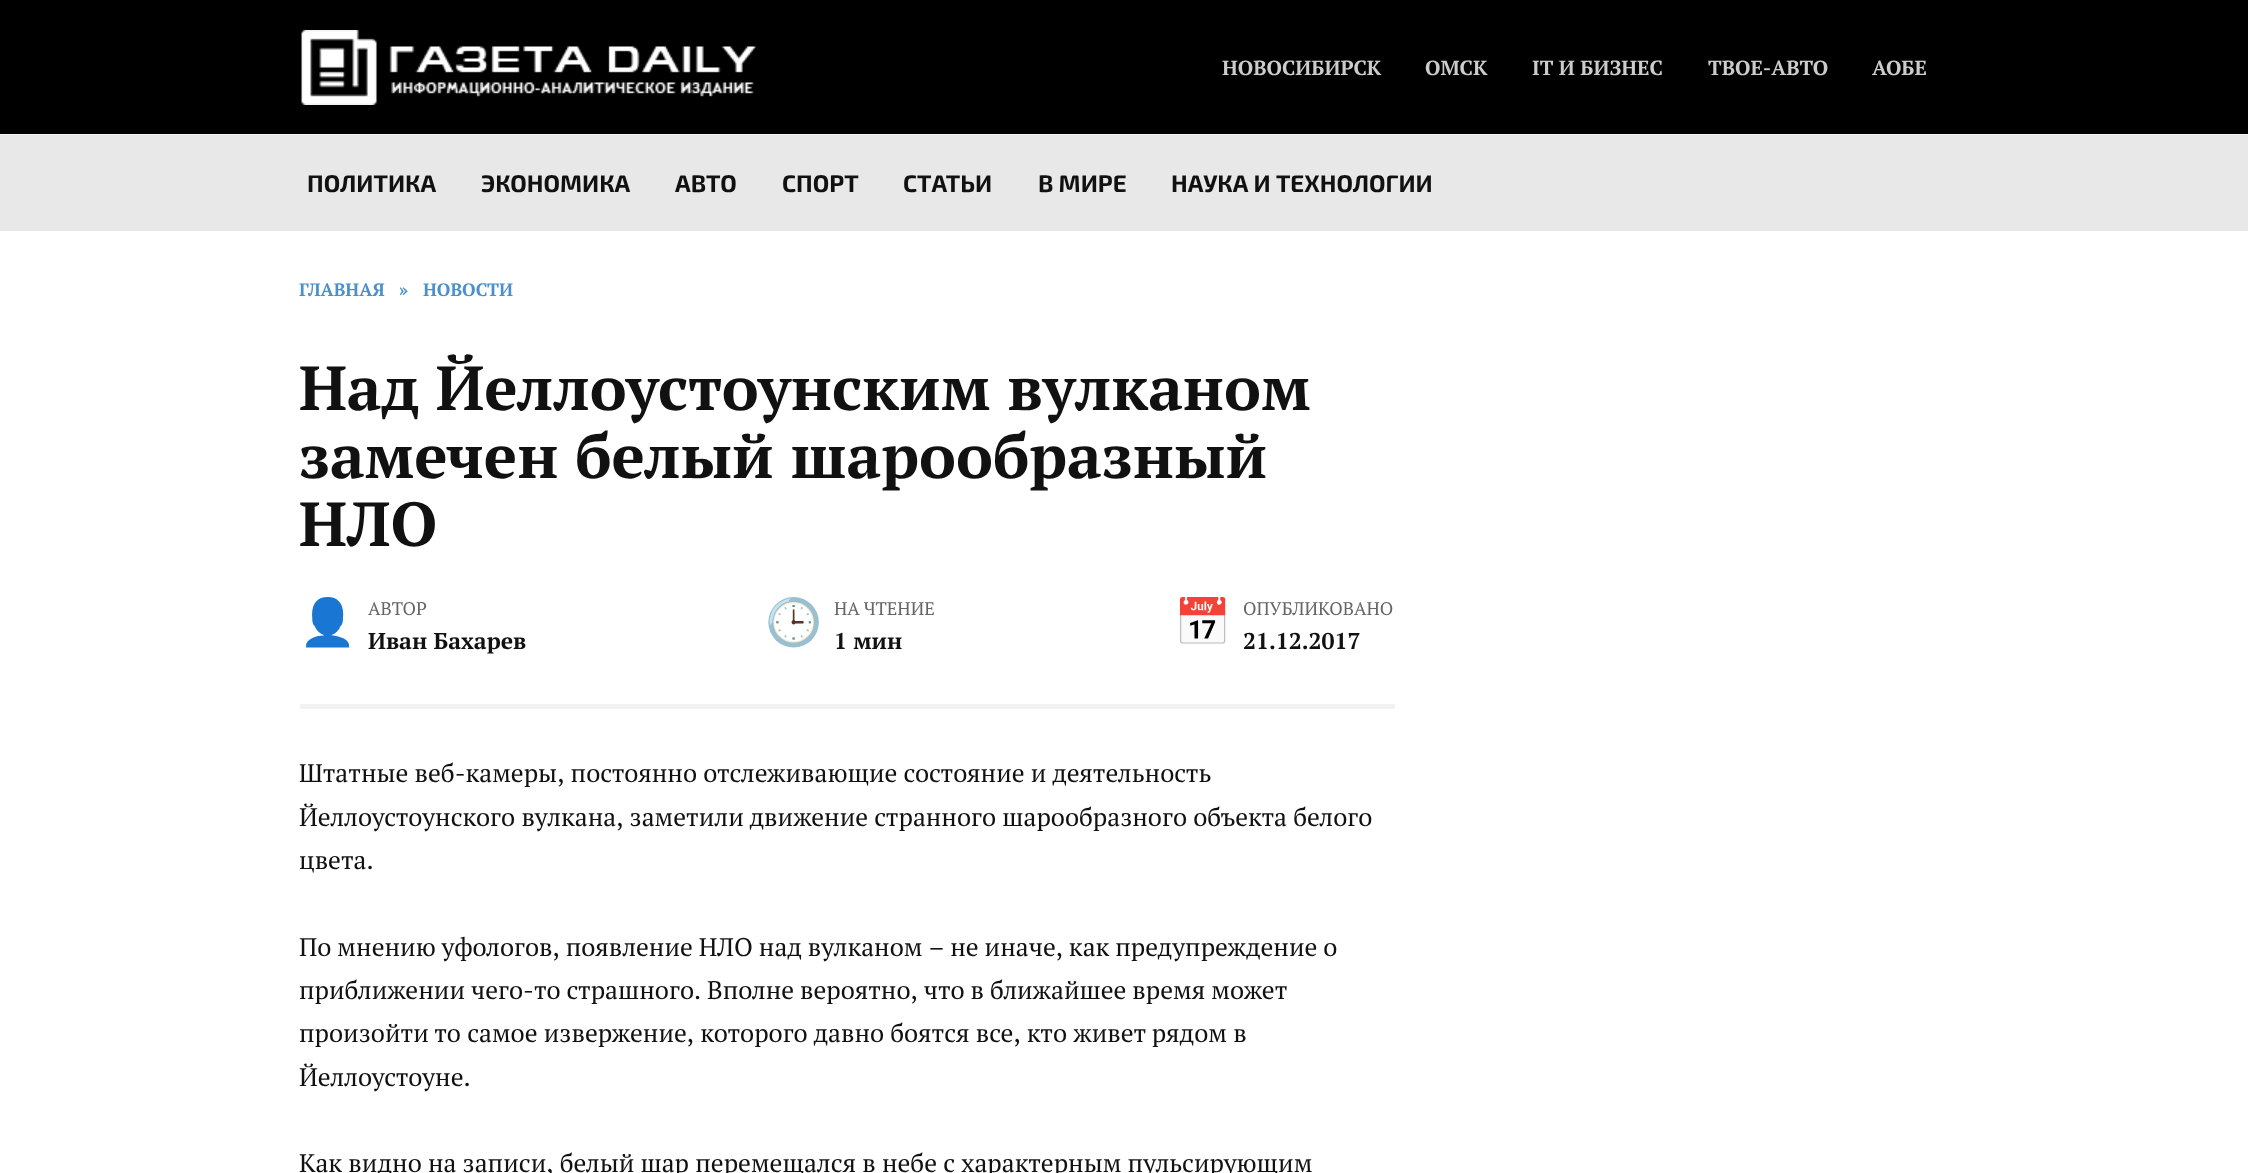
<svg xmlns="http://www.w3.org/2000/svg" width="2248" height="1173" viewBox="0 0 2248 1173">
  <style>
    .t1 { font: bold 20.5px PT Serif; fill: #ccc; }
    .t2 { font: bold 24px 'Exo 2'; fill: #111; }
    .t3 { font: bold 18px PT Serif; fill: #4b8fcb; }
    .t4 { font: bold 62.2px PT Serif; fill: #111; }
    .t5 { font: 46px Noto Color Emoji; fill: #1e73be; }
    .t6 { font: 18.25px PT Serif; fill: #666; }
    .t7 { font: bold 23px PT Serif; fill: #111; }
    .t8 { font: 25.5px PT Serif; fill: #111; }
  </style>
  <defs>
    <clipPath id="clip1"><rect x="300" y="596" width="227" height="63"/></clipPath>
  </defs>
  <rect width="100%" height="100%" fill="#fff"/>
  <rect x="0" y="0" width="2248" height="134" fill="#000"/>
  <rect x="0" y="134" width="2248" height="1" fill="#f2f5f9"/>
  <image x="301" y="30" width="456" height="75" href="images/1.png"/>
  <text x="1222" y="75" class="t1">НОВОСИБИРСК</text>
  <text x="1425" y="75" class="t1">ОМСК</text>
  <text x="1532" y="75" class="t1">IT И БИЗНЕС</text>
  <text x="1708" y="75" class="t1">ТВОЕ-АВТО</text>
  <text x="1872" y="75" class="t1">АОБЕ</text>
  <rect x="0" y="135" width="2248" height="96" fill="#e8e8e8"/>
  <text x="307" y="192" class="t2">ПОЛИТИКА</text>
  <text x="481" y="192" class="t2">ЭКОНОМИКА</text>
  <text x="675" y="192" class="t2">АВТО</text>
  <text x="782" y="192" class="t2">СПОРТ</text>
  <text x="903" y="192" class="t2">СТАТЬИ</text>
  <text x="1038" y="192" class="t2">В МИРЕ</text>
  <text x="1171" y="192" class="t2">НАУКА И ТЕХНОЛОГИИ</text>
  <text x="299" y="296" class="t3">ГЛАВНАЯ</text>
  <text x="399" y="296" class="t3">»</text>
  <text x="423" y="296" class="t3">НОВОСТИ</text>
  <text x="299" y="410" class="t4">Над Йеллоустоунским вулканом</text>
  <text x="299" y="478" class="t4">замечен белый шарообразный</text>
  <text x="299" y="546" class="t4">НЛО</text>
  <rect x="300" y="704" width="1095" height="5" fill="#f2f2f2"/>
  <g clip-path="url(#clip1)">
    <text x="299" y="638" class="t5">👤</text>
  </g>
  <text x="368" y="615" class="t6">АВТОР</text>
  <text x="368" y="649" class="t7">Иван Бахарев</text>
  <text x="765" y="638" class="t5">🕒</text>
  <text x="834" y="615" class="t6">НА ЧТЕНИЕ</text>
  <text x="834" y="649" class="t7">1 мин</text>
  <text x="1174" y="638" class="t5">📅</text>
  <text x="1243" y="615" class="t6">ОПУБЛИКОВАНО</text>
  <text x="1243" y="649" class="t7">21.12.2017</text>
  <text x="299" y="782" class="t8">Штатные веб-камеры, постоянно отслеживающие состояние и деятельность</text>
  <text x="299" y="826" class="t8">Йеллоустоунского вулкана, заметили движение странного шарообразного объекта белого</text>
  <text x="299" y="869" class="t8">цвета.</text>
  <text x="299" y="956" word-spacing="-0.3" class="t8">По мнению уфологов, появление НЛО над вулканом – не иначе, как предупреждение о</text>
  <text x="299" y="999" word-spacing="-0.25" class="t8">приближении чего-то страшного. Вполне вероятно, что в ближайшее время может</text>
  <text x="299" y="1042" class="t8">произойти то самое извержение, которого давно боятся все, кто живет рядом в</text>
  <text x="299" y="1086" class="t8">Йеллоустоуне.</text>
  <text x="299" y="1172" class="t8">Как видно на записи, белый шар перемещался в небе с характерным пульсирующим</text>
</svg>
